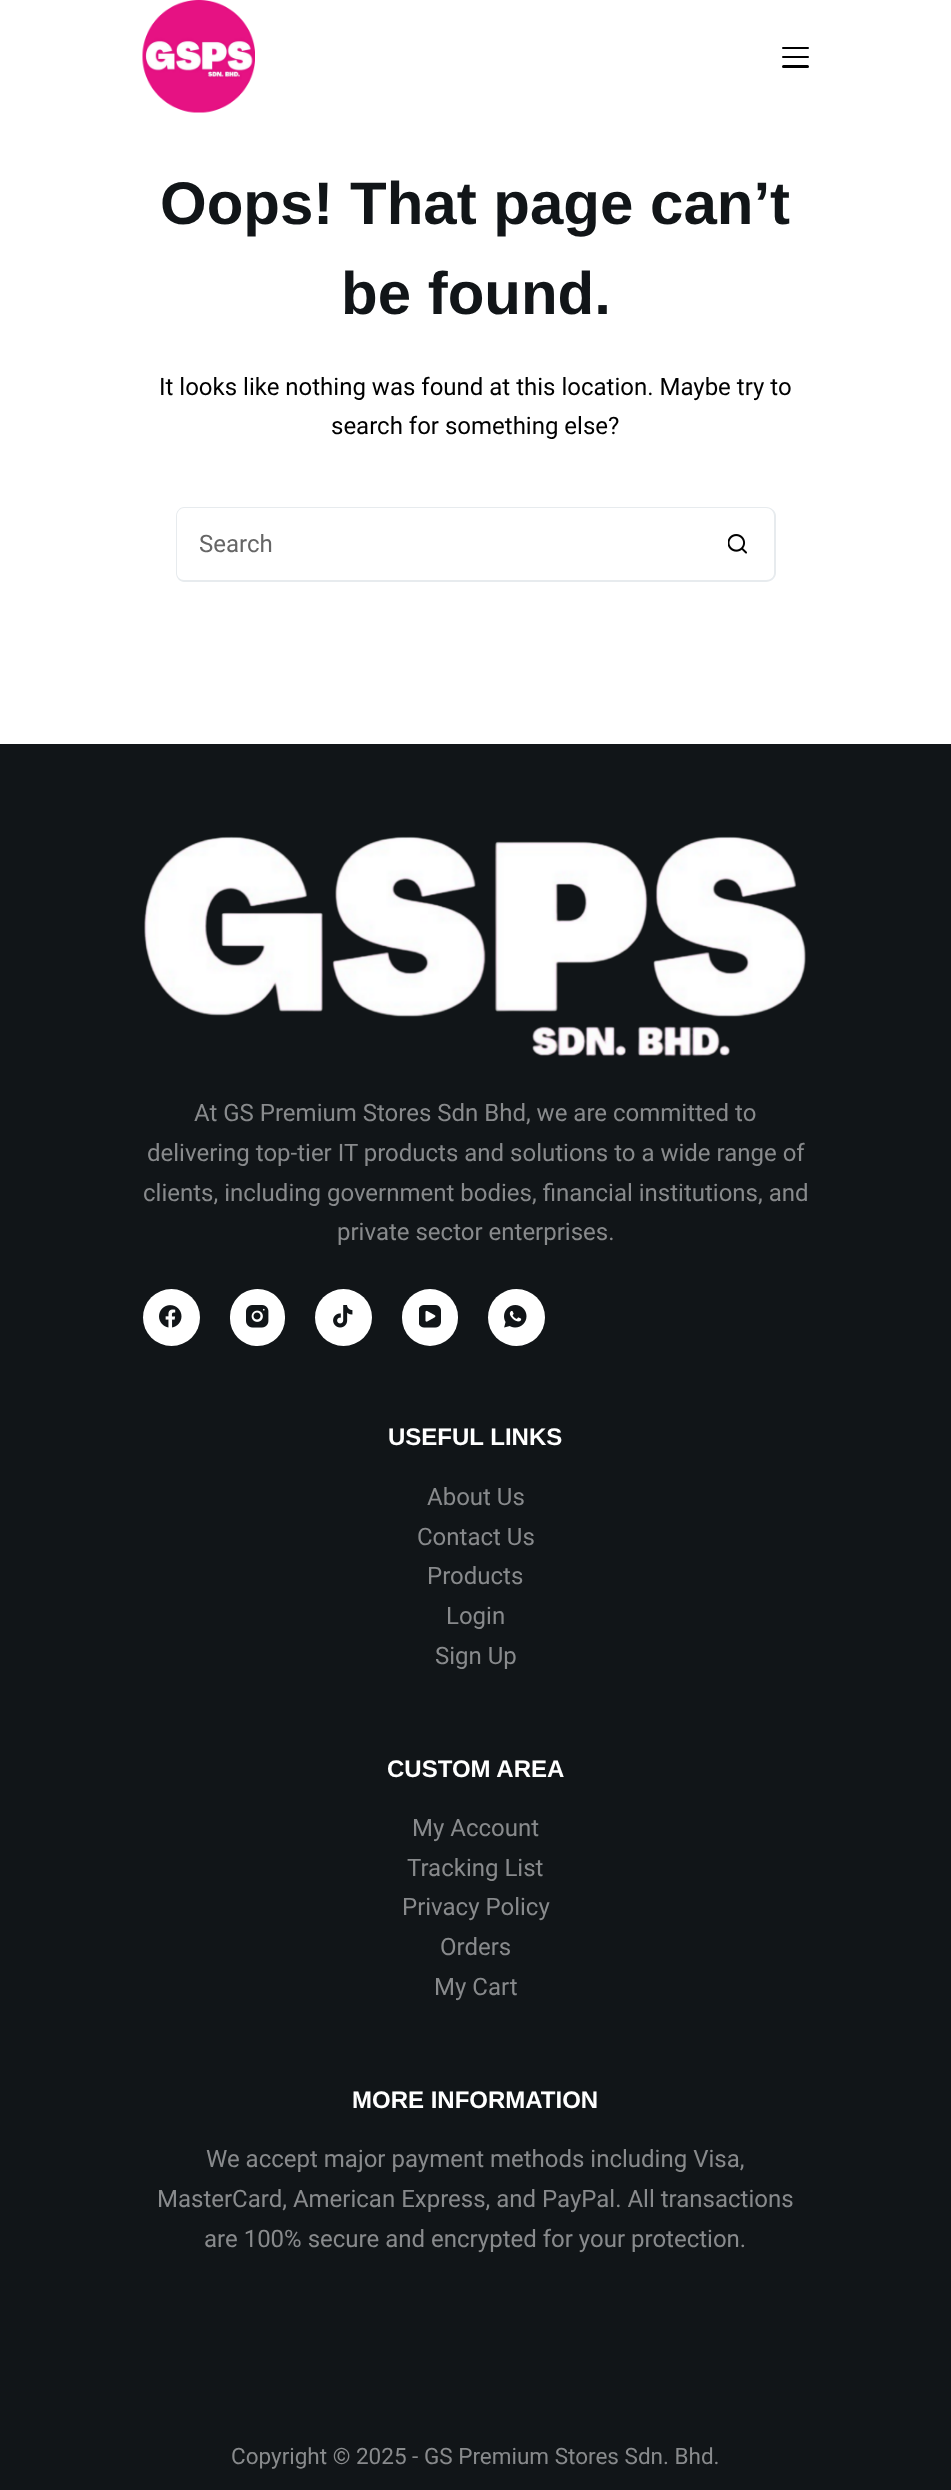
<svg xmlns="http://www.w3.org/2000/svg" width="951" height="2490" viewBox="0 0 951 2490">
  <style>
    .t1 { font: bold 60px Liberation Sans; fill: #111518; }
    .t2 { font: 24px Roboto; fill: #000; }
    .t3 { font: 24px Roboto; fill: #666; }
    .t4 { font: 24px Roboto; fill: #888a8c; }
    .t5 { font: bold 24px Liberation Sans; fill: #fff; }
    .t6 { font: 22.5px Roboto; fill: #888a8c; }
  </style>
  <rect width="100%" height="100%" fill="#fff"/>
  <image x="142" y="0" width="113" height="113" href="images/1.png"/>
  <rect x="782" y="47" width="27" height="2" rx="1" fill="#000"/>
  <rect x="782" y="56" width="27" height="2" rx="1" fill="#000"/>
  <rect x="782" y="65" width="27" height="3" rx="1.5" fill="#000"/>
  <text x="160" y="224" class="t1">Oops! That page can’t</text>
  <text x="341" y="314" class="t1">be found.</text>
  <text x="159" y="395" class="t2">It looks like nothing was found at this location. Maybe try to</text>
  <text x="331" y="434" class="t2">search for something else?</text>
  <path d="M184 507H700V582H184C180 582 176 578 176 573V516C176 511 180 507 184 507ZM184 508H700V580H184C180 580 177 577 177 573V516C177 512 180 508 184 508Z" fill="#e7ebee" fill-rule="evenodd"/>
  <text x="199" y="552" class="t3">Search</text>
  <path d="M700 507H766C771 507 776 511 776 516V573C776 578 771 582 766 582H700ZM700 508H766C771 508 774 512 774 516V573C774 577 771 580 766 580H700Z" fill="#e7ebee" fill-rule="evenodd"/>
  <image x="728" y="534" width="19" height="20" href="images/2.png"/>
  <rect x="0" y="744" width="951" height="1746" fill="#111518"/>
  <image x="144" y="836" width="662" height="221" href="images/3.png"/>
  <text x="194" y="1121" class="t4">At GS Premium Stores Sdn Bhd, we are committed to</text>
  <text x="147" y="1161" class="t4">delivering top-tier IT products and solutions to a wide range of</text>
  <text x="143" y="1201" class="t4">clients, including government bodies, financial institutions, and</text>
  <text x="337" y="1240" class="t4">private sector enterprises.</text>
  <circle cx="171.5" cy="1317.5" r="28.5" fill="#fff"/>
  <image x="159" y="1305" width="23" height="23" href="images/4.png"/>
  <rect x="230" y="1289" width="55" height="57" rx="27.5" fill="#fff"/>
  <image x="246" y="1305" width="23" height="23" href="images/5.png"/>
  <circle cx="343.5" cy="1317.5" r="28.5" fill="#fff"/>
  <image x="333" y="1305" width="20" height="23" href="images/6.png"/>
  <rect x="402" y="1289" width="56" height="57" rx="28" fill="#fff"/>
  <image x="419" y="1305" width="22" height="23" href="images/7.png"/>
  <circle cx="516.5" cy="1317.5" r="28.5" fill="#fff"/>
  <image x="504" y="1305" width="23" height="23" href="images/8.png"/>
  <text x="388" y="1445" class="t5">USEFUL LINKS</text>
  <text x="427" y="1505" class="t4">About Us</text>
  <text x="417" y="1545" class="t4">Contact Us</text>
  <text x="427" y="1584" class="t4">Products</text>
  <text x="446" y="1624" class="t4">Login</text>
  <text x="435" y="1664" class="t4">Sign Up</text>
  <text x="387" y="1777" class="t5">CUSTOM AREA</text>
  <text x="412" y="1836" class="t4">My Account</text>
  <text x="407" y="1876" class="t4">Tracking List</text>
  <text x="402" y="1915" class="t4">Privacy Policy</text>
  <text x="440" y="1955" class="t4">Orders</text>
  <text x="434" y="1995" class="t4">My Cart</text>
  <text x="352" y="2108" class="t5">MORE INFORMATION</text>
  <text x="206" y="2167" class="t4">We accept major payment methods including Visa,</text>
  <text x="157" y="2207" class="t4">MasterCard, American Express, and PayPal. All transactions</text>
  <text x="204" y="2247" class="t4">are 100% secure and encrypted for your protection.</text>
  <text x="231" y="2464" class="t6">Copyright © 2025 - GS Premium Stores Sdn. Bhd.</text>
</svg>
